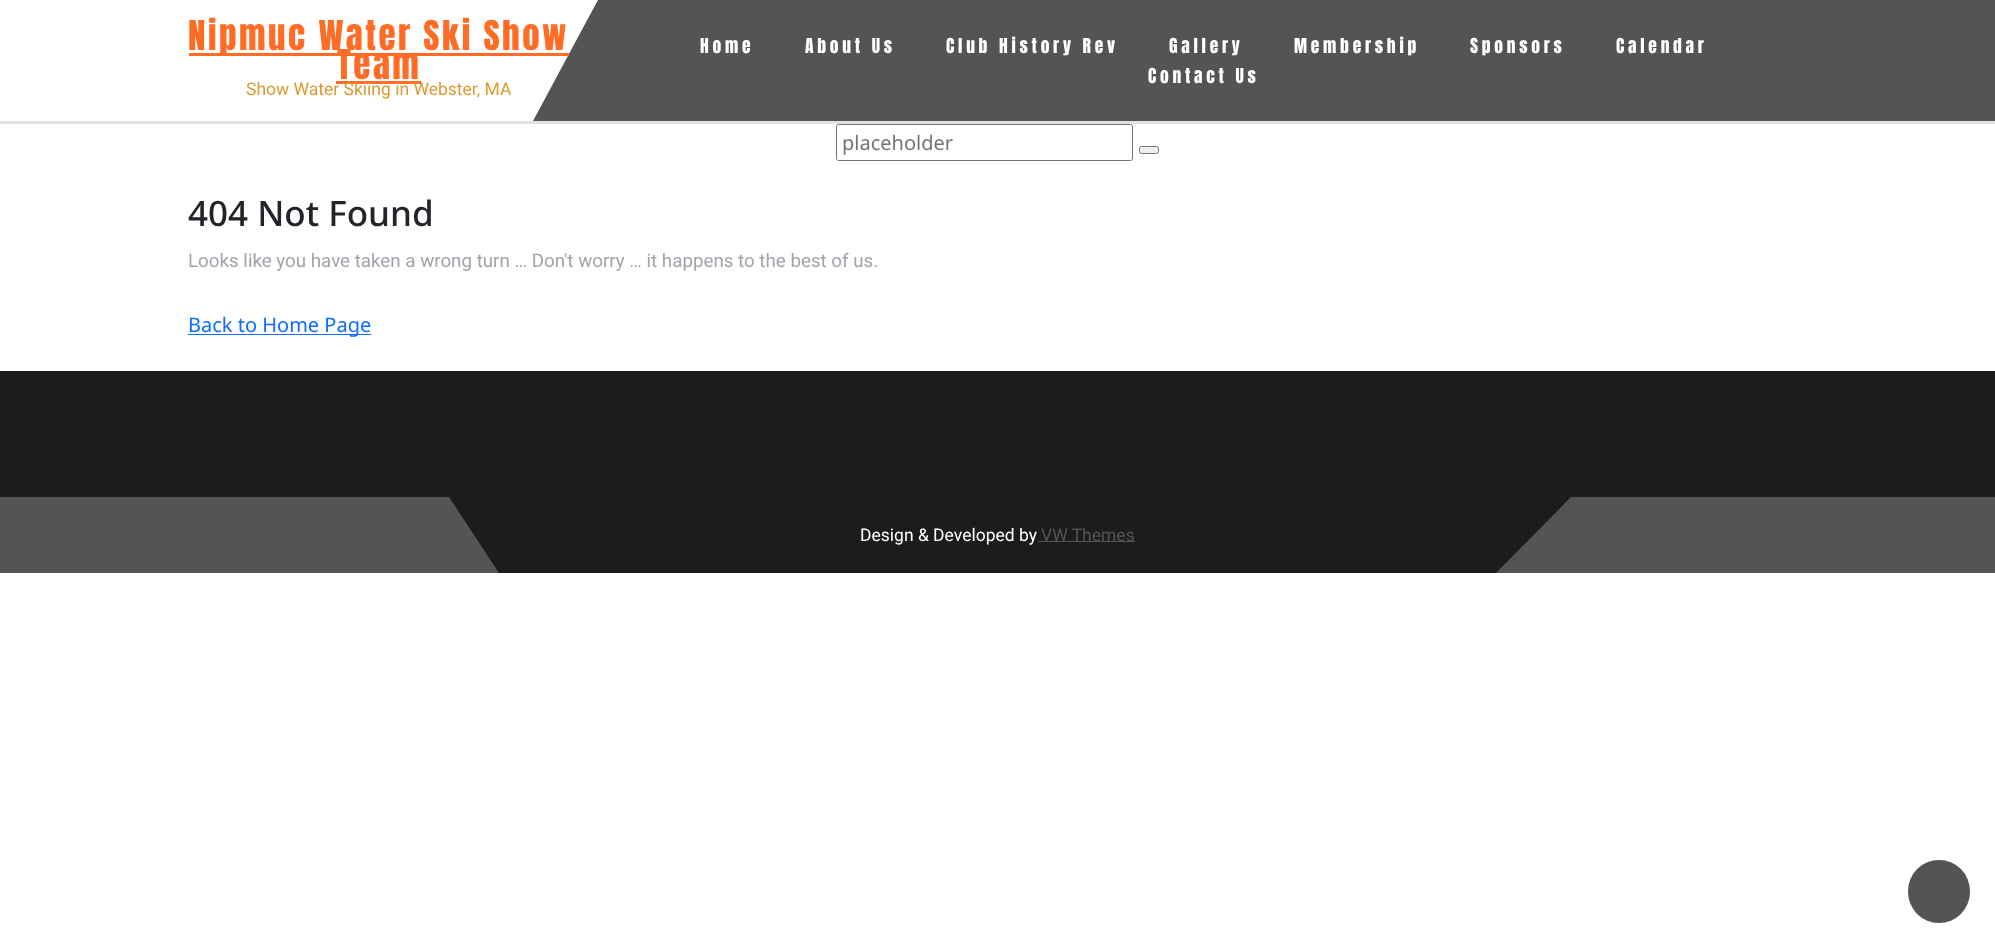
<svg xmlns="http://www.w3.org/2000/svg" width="1995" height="935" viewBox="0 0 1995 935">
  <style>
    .t1 { font: 35px Anton; letter-spacing: 2.5px; fill: #ff6c26; }
    .t2 { font: 17.5px Roboto; fill: #d93; }
    .t3 { font: 17.5px Anton; letter-spacing: 3.75px; fill: #fff; }
    .t4 { font: 20px Noto Sans; fill: #757575; }
    .t5 { font: 500 35px Noto Sans; fill: #212529; }
    .t6 { font: 18.75px Roboto; fill: #a1a5ab; }
    .t7 { font: 20px Noto Sans; fill: #0d6efd; }
    .t8 { font: 17.5px Roboto; fill: #fff; }
    .t9 { font: 17.5px Roboto; fill: #545454; }
  </style>
  <defs>
    <clipPath id="clip1"><path d="M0 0H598.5L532.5 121H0Z"/></clipPath>
  </defs>
  <rect width="100%" height="100%" fill="#fff"/>
  <rect x="533" y="0" width="1462" height="121" fill="#545454"/>
  <rect x="0" y="121" width="1995" height="3" fill="#e2e2e2"/>
  <g clip-path="url(#clip1)">
    <rect x="0" y="0" width="599" height="121" fill="#00000099" filter="blur(35.5px)"/>
  </g>
  <path d="M0 0V121H533L598 0Z" fill="#fff"/>
  <rect x="189" y="53" width="380" height="3" fill="#ff6c26"/>
  <text x="188" y="50" class="t1">Nipmuc Water Ski Show</text>
  <text x="337" y="79" class="t1">Team</text>
  <rect x="336" y="81" width="85" height="3" fill="#ff6c26"/>
  <text x="246" y="95" class="t2">Show Water Skiing in Webster, MA</text>
  <text x="700" y="53" class="t3">Home</text>
  <text x="805" y="53" class="t3">About Us</text>
  <text x="946" y="53" class="t3">Club History Rev</text>
  <text x="1169" y="53" class="t3">Gallery</text>
  <text x="1294" y="53" class="t3">Membership</text>
  <text x="1470" y="53" class="t3">Sponsors</text>
  <text x="1616" y="53" class="t3">Calendar</text>
  <text x="1148" y="83" class="t3">Contact Us</text>
  <rect x="836.5" y="124.5" width="296" height="36" rx="2" fill="none" stroke="#767676"/>
  <text x="842" y="150" class="t4">placeholder</text>
  <rect x="1139.5" y="146.5" width="19" height="7" rx="2" fill="#efefef" stroke="#767676"/>
  <text x="188" y="226" class="t5">404 Not Found</text>
  <text x="188" y="267" class="t6">Looks like you have taken a wrong turn … Don't worry … it happens to the best of us.</text>
  <rect x="188" y="334" width="183" height="1" fill="#0d6efd"/>
  <text x="188" y="332" class="t7">Back to Home Page</text>
  <rect x="0" y="371" width="1995" height="202" fill="#1c1c1c"/>
  <path d="M0 497V573H499L449 497Z" fill="#545454"/>
  <text x="860" y="541" class="t8">Design &amp; Developed by</text>
  <rect x="1038" y="541" width="97" height="1" fill="#545454"/>
  <text x="1041" y="541" class="t9">VW Themes</text>
  <path d="M1571 497L1496 573H1995V497Z" fill="#545454"/>
  <rect x="1908" y="860" width="62" height="63" rx="31" fill="#545454"/>
</svg>
